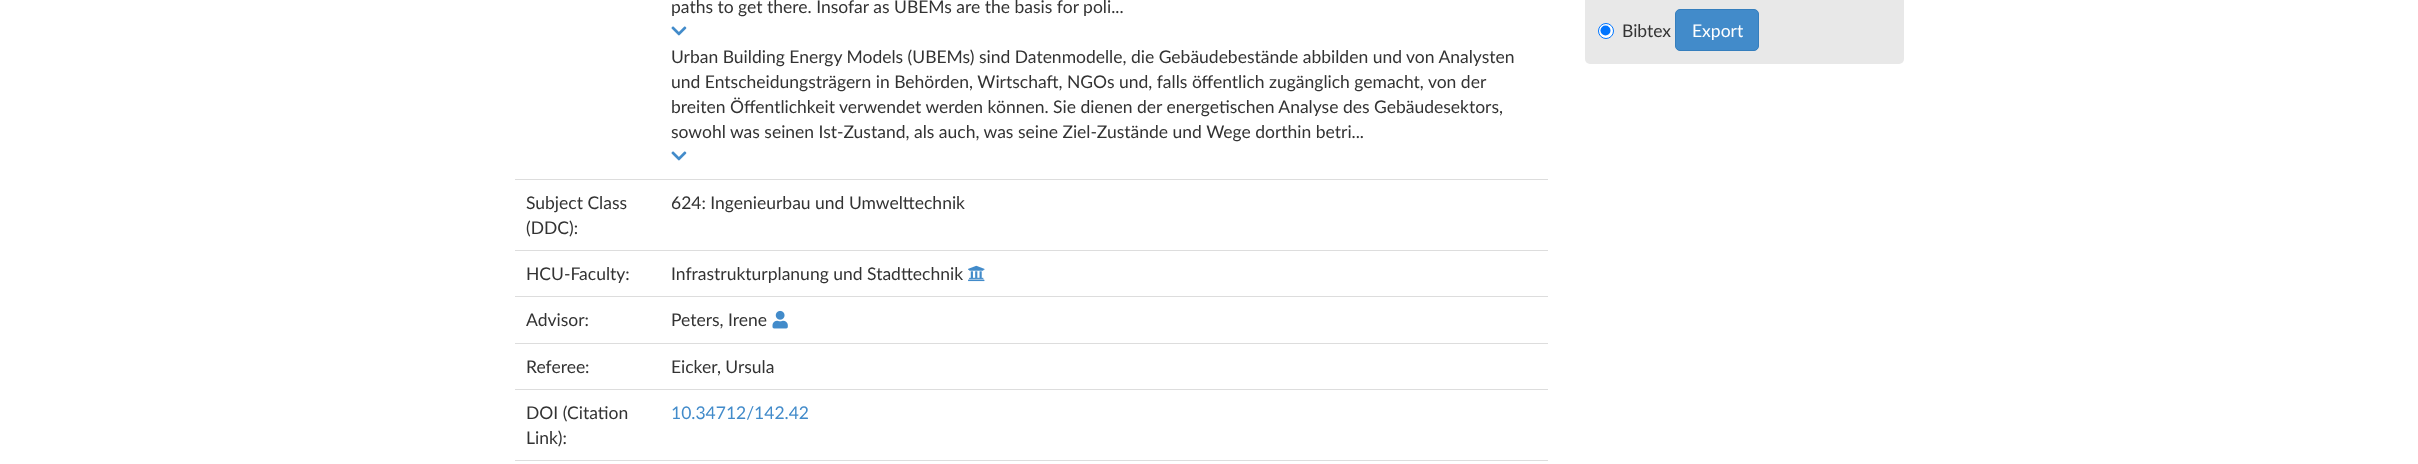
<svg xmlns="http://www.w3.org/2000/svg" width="2418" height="464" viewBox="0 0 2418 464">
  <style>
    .t1 { font: 17.5px Lato; fill: #333; }
    .t2 { font: 17.5px Lato; fill: #428bca; }
    .t3 { font: 17.5px Lato; fill: #fff; }
  </style>
  <rect width="100%" height="100%" fill="#fff"/>
  <text x="671" y="13" class="t1">paths to get there. Insofar as UBEMs are the basis for poli...</text>
  <image x="671" y="26" width="16" height="10" href="images/1.png"/>
  <text x="671" y="63" class="t1">Urban Building Energy Models (UBEMs) sind Datenmodelle, die Gebäudebestände abbilden und von Analysten</text>
  <text x="671" y="88" class="t1">und Entscheidungsträgern in Behörden, Wirtschaft, NGOs und, falls öffentlich zugänglich gemacht, von der</text>
  <text x="671" y="113" class="t1">breiten Öffentlichkeit verwendet werden können. Sie dienen der energetischen Analyse des Gebäudesektors,</text>
  <text x="671" y="138" class="t1">sowohl was seinen Ist-Zustand, als auch, was seine Ziel-Zustände und Wege dorthin betri...</text>
  <image x="671" y="151" width="16" height="10" href="images/1.png"/>
  <text x="526" y="209" class="t1">Subject Class</text>
  <text x="526" y="234" class="t1">(DDC):</text>
  <rect x="515" y="179" width="1033" height="1" fill="#ddd"/>
  <text x="671" y="209" class="t1">624: Ingenieurbau und Umwelttechnik</text>
  <text x="526" y="280" class="t1">HCU-Faculty:</text>
  <rect x="515" y="250" width="1033" height="1" fill="#ddd"/>
  <text x="671" y="280" class="t1">Infrastrukturplanung und Stadttechnik</text>
  <image x="968" y="265" width="17" height="17" href="images/2.png"/>
  <text x="526" y="326" class="t1">Advisor:</text>
  <rect x="515" y="296" width="1033" height="1" fill="#ddd"/>
  <text x="671" y="326" class="t1">Peters, Irene</text>
  <image x="772" y="310" width="16" height="19" href="images/3.png"/>
  <text x="526" y="373" class="t1">Referee:</text>
  <rect x="515" y="343" width="1033" height="1" fill="#ddd"/>
  <text x="671" y="373" class="t1">Eicker, Ursula</text>
  <text x="526" y="419" class="t1">DOI (Citation</text>
  <text x="526" y="444" class="t1">Link):</text>
  <rect x="515" y="389" width="1033" height="1" fill="#ddd"/>
  <text x="671" y="419" class="t2">10.34712/142.42</text>
  <rect x="515" y="460" width="1033" height="1" fill="#ddd"/>
  <rect x="1585" y="-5" width="319" height="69" rx="5" fill="#e8e8e8"/>
  <circle cx="1606" cy="31" r="7.5" fill="#fff" stroke="#0075ff"/>
  <circle cx="1605.5" cy="30.5" r="5" fill="#0075ff"/>
  <text x="1622" y="37" class="t1">Bibtex</text>
  <rect x="1675.5" y="9.5" width="83" height="41" rx="4.5" fill="#428bca" stroke="#357ebd"/>
  <text x="1692" y="37" class="t3">Export</text>
</svg>
